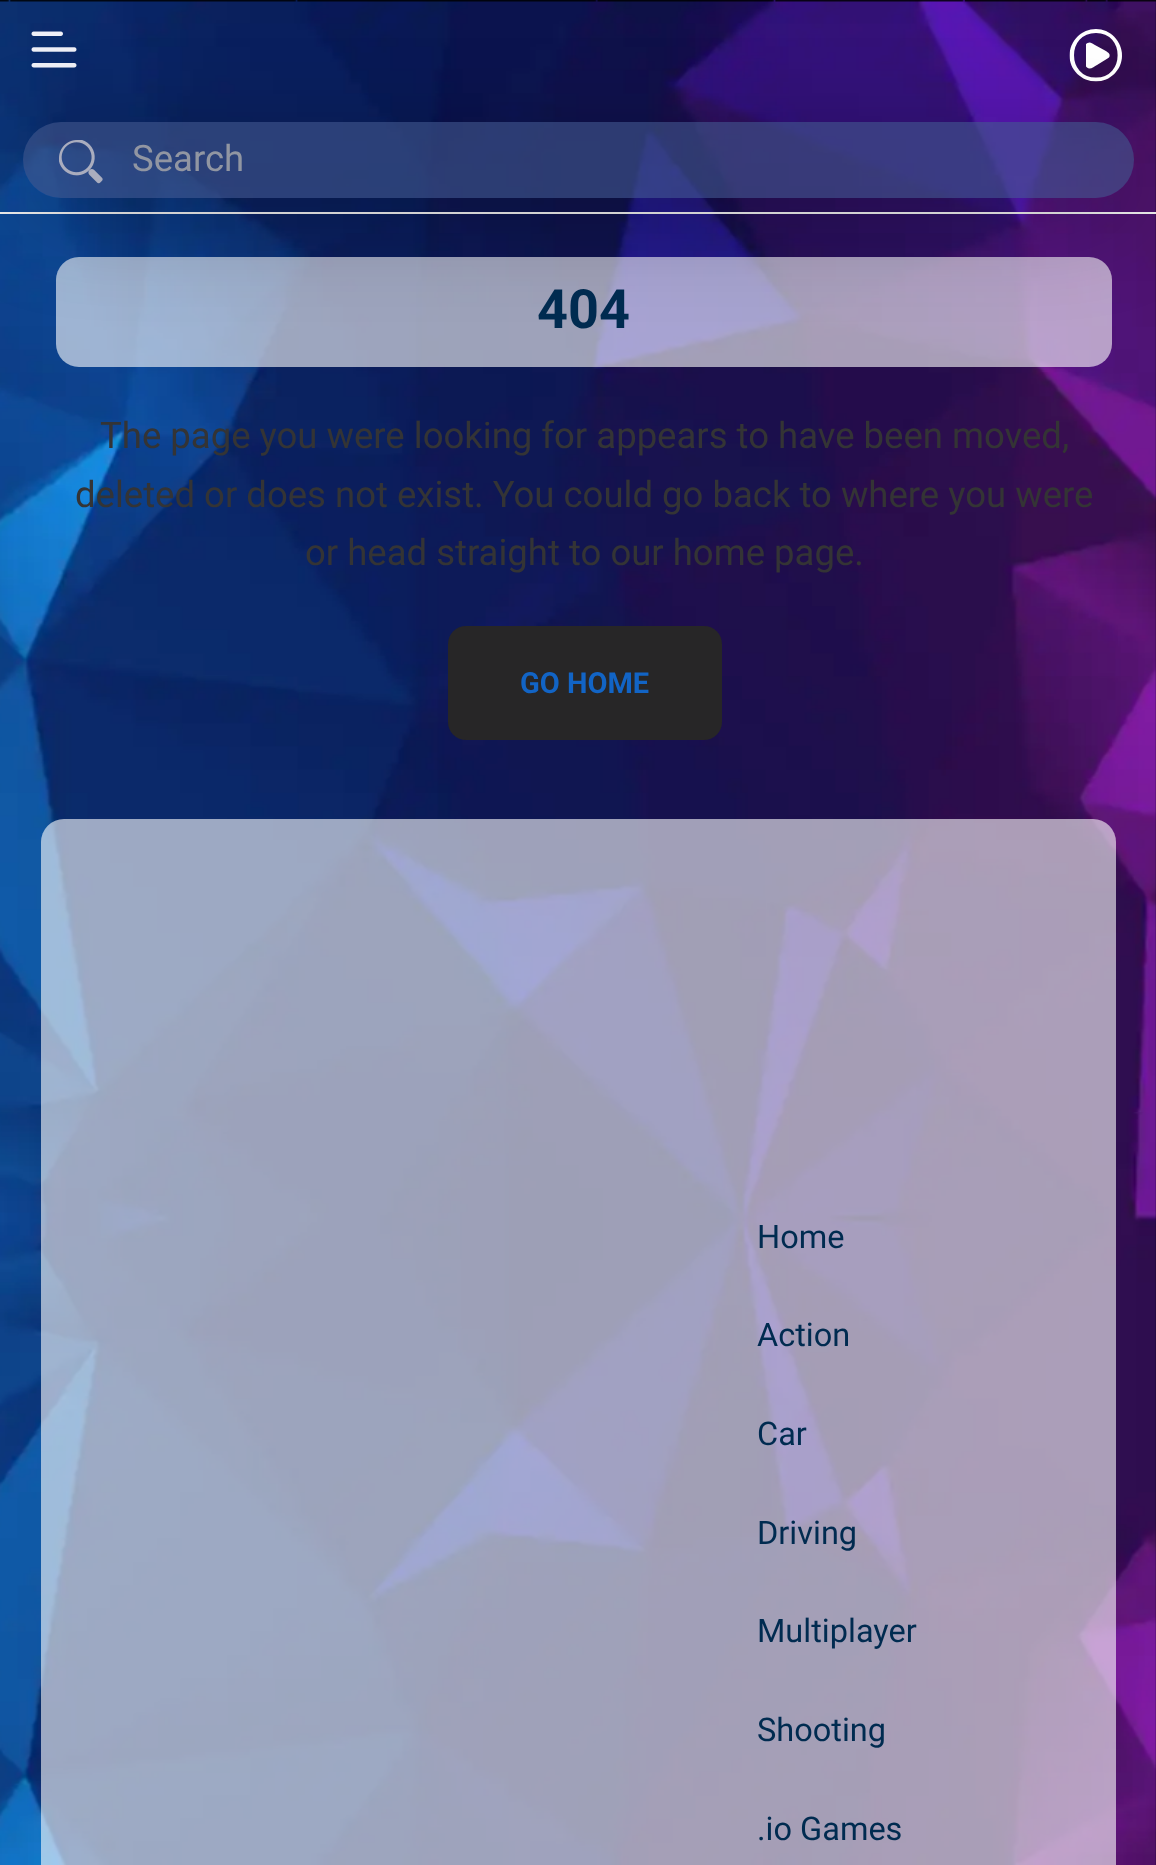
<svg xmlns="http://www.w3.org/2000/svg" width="1156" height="1865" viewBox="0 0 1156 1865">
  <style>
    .t1 { font: 36.5px Roboto; fill: #9196a2; }
    .t2 { font: bold 54px Roboto; fill: #002b50; }
    .t3 { font: 36.5px Roboto; fill: #343435; }
    .t4 { font: bold 29px Roboto; fill: #1264c5; }
    .t5 { font: 32.5px Roboto; fill: #002b50; }
  </style>
  <defs>
    <clipPath id="clip1"><path d="M1069.5 29H1122V81.5H1069.5Z"/></clipPath>
    <clipPath id="clip2"><path d="M1096 29C1081.5 29 1069.5 41 1069.5 55.5C1069.5 70 1081.5 81.5 1096 81.5C1110 81.5 1122 70 1122 55.5C1122 41 1110 29 1096 29"/></clipPath>
    <clipPath id="clip3"><path d="M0 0H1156V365H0ZM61 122H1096C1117 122 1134 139 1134 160C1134 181 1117 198 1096 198H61C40 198 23 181 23 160C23 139 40 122 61 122Z" clip-rule="evenodd"/></clipPath>
  </defs>
  <rect width="100%" height="100%" fill="#000"/>
  <image x="0" y="0" width="1156" height="1865" href="images/1.png"/>
  <rect x="0" y="212" width="1156" height="2" fill="#efefef"/>
  <image x="31" y="31" width="46" height="37" href="images/2.png"/>
  <g clip-path="url(#clip1)">
    <g clip-path="url(#clip2)">
      <path d="M1096 29C1061.5 29 1061.5 81.5 1096 81.5C1130 81.5 1130 29 1096 29Z" fill="none" stroke="#fff" stroke-width="7.8"/>
    </g>
  </g>
  <path d="M1107.5 58.5L1097 65C1094 66.5 1090 70.5 1087 67.5L1086 66.5V44L1087.5 43C1090 41.5 1092 43 1094 44.5L1105 50.5C1107 52 1110.5 53 1109.5 56.5C1109 57.5 1108.5 58 1107.5 58.5Z" fill="#fff"/>
  <rect x="56" y="257" width="1056" height="110" rx="23" fill="#ffffff99"/>
  <g clip-path="url(#clip3)">
    <rect x="23" y="142" width="1111" height="76" rx="38" fill="#00000040" filter="blur(48.5px)"/>
  </g>
  <rect x="23" y="122" width="1111" height="76" rx="38" fill="#405489a1"/>
  <image x="59" y="140" width="44" height="44" href="images/3.png"/>
  <text x="132" y="171" class="t1">Search</text>
  <text x="537" y="328" class="t2">404</text>
  <text x="100" y="448" class="t3">The page you were looking for appears to have been moved,</text>
  <text x="75" y="507" class="t3">deleted or does not exist. You could go back to where you were</text>
  <text x="305" y="565" class="t3">or head straight to our home page.</text>
  <rect x="448" y="626" width="274" height="114" rx="18" fill="#272627"/>
  <text x="520" y="693" class="t4">GO HOME</text>
  <rect x="41" y="819" width="1075" height="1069" rx="23" fill="#ffffff99"/>
  <text x="757" y="1248" class="t5">Home</text>
  <text x="757" y="1346" class="t5">Action</text>
  <text x="757" y="1445" class="t5">Car</text>
  <text x="757" y="1544" class="t5">Driving</text>
  <text x="757" y="1642" class="t5">Multiplayer</text>
  <text x="757" y="1741" class="t5">Shooting</text>
  <text x="757" y="1840" class="t5">.io Games</text>
</svg>
